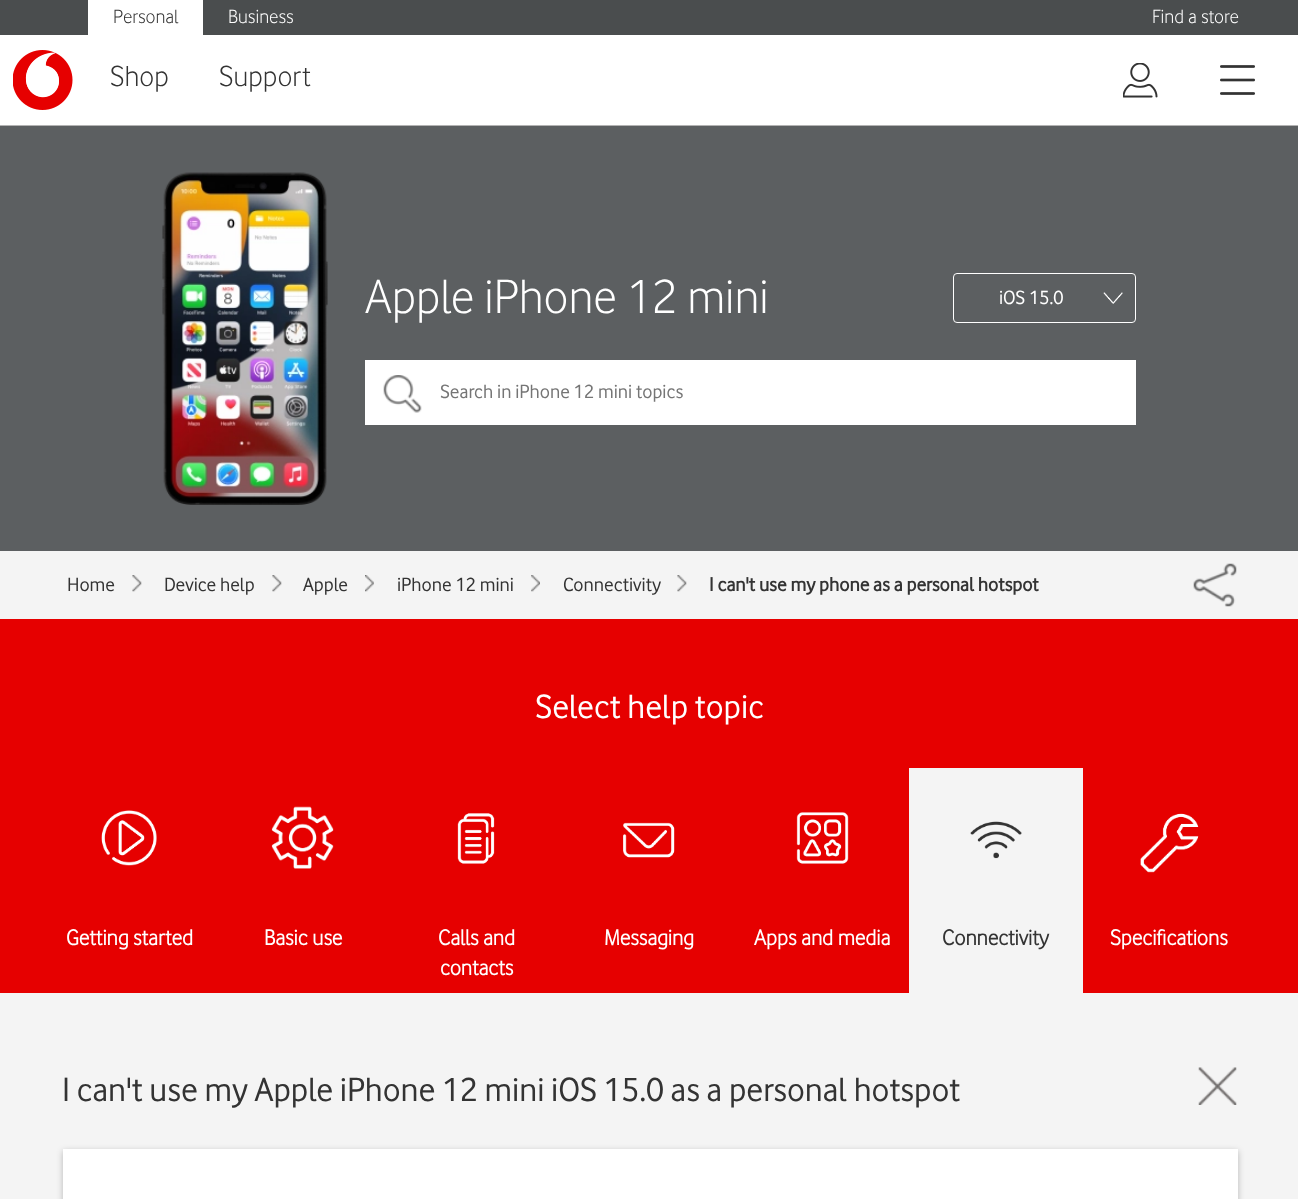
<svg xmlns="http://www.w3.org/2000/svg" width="1298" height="1199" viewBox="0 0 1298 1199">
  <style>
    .t1 { font: 20px 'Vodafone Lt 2'; fill: #333; }
    .t2 { font: 20px 'Vodafone Lt 2'; fill: #fff; }
    .t3 { font: 30px 'Vodafone Lt 2'; fill: #333; }
    .t4 { font: 50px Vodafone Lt; fill: #fff; }
    .t5 { font: 20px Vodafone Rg; fill: #fff; }
    .t6 { font: 20px Vodafone Rg; fill: #757575; }
    .t7 { font: 20px Vodafone Rg; fill: #333; }
    .t8 { font: bold 20px Vodafone Rg; fill: #333; }
    .t9 { font: 35px Vodafone Rg; fill: #fff; }
    .t10 { font: bold 22.5px Vodafone Lt; fill: #fff; }
    .t11 { font: bold 22.5px Vodafone Lt; fill: #333; }
    .t12 { font: 35px Vodafone Rg; fill: #333; }
  </style>
  <rect width="100%" height="100%" fill="#fff"/>
  <rect x="0" y="0" width="1298" height="35" fill="#4a4d4e"/>
  <rect x="88" y="0" width="115" height="35" fill="#fff"/>
  <text x="113" y="23" class="t1">Personal</text>
  <text x="228" y="23" class="t2">Business</text>
  <text x="1152" y="23" class="t2">Find a store</text>
  <rect x="0" y="125" width="1298" height="1" fill="#b3b3b3"/>
  <image x="13" y="50" width="60" height="60" href="images/1.png"/>
  <text x="110" y="86" class="t3">Shop</text>
  <text x="219" y="86" class="t3">Support</text>
  <image x="1123" y="63" width="35" height="35" href="images/2.png"/>
  <image x="1220" y="65" width="35" height="30" href="images/3.png"/>
  <rect x="0" y="126" width="1298" height="425" fill="#5c5f61"/>
  <image x="162" y="172" width="166" height="333" href="images/4.png"/>
  <text x="365" y="313" class="t4">Apple iPhone 12 mini</text>
  <rect x="953.5" y="273.5" width="182" height="49" rx="3.5" fill="none" stroke="#fff"/>
  <text x="999" y="304" class="t5">iOS 15.0</text>
  <image x="1103" y="292" width="20" height="12" href="images/5.png"/>
  <rect x="365" y="360" width="771" height="65" fill="#fff"/>
  <image x="383" y="375" width="39" height="38" href="images/6.png"/>
  <text x="440" y="398" class="t6">Search in iPhone 12 mini topics</text>
  <rect x="0" y="551" width="1298" height="68" fill="#f4f4f4"/>
  <text x="67" y="591" class="t7">Home</text>
  <image x="132" y="575" width="10" height="17" href="images/7.png"/>
  <text x="164" y="591" class="t7">Device help</text>
  <image x="272" y="575" width="10" height="17" href="images/7.png"/>
  <text x="303" y="591" class="t7">Apple</text>
  <image x="365" y="575" width="9" height="17" href="images/8.png"/>
  <text x="397" y="591" class="t7">iPhone 12 mini</text>
  <image x="531" y="575" width="9" height="17" href="images/9.png"/>
  <text x="563" y="591" class="t7">Connectivity</text>
  <image x="677" y="575" width="10" height="17" href="images/7.png"/>
  <text x="709" y="591" class="t8">I can't use my phone as a personal hotspot</text>
  <image x="1193" y="563" width="44" height="44" href="images/10.png"/>
  <rect x="0" y="619" width="1298" height="374" fill="#e60000"/>
  <text x="535" y="718" class="t9">Select help topic</text>
  <image x="101" y="810" width="56" height="56" href="images/11.png"/>
  <text x="66" y="945" class="t10">Getting started</text>
  <image x="271" y="806" width="63" height="63" href="images/12.png"/>
  <text x="264" y="945" class="t10">Basic use</text>
  <image x="457" y="813" width="38" height="51" href="images/13.png"/>
  <text x="438" y="945" class="t10">Calls and</text>
  <text x="440" y="975" class="t10">contacts</text>
  <image x="623" y="822" width="52" height="36" href="images/14.png"/>
  <text x="604" y="945" class="t10">Messaging</text>
  <image x="796" y="812" width="53" height="52" href="images/15.png"/>
  <text x="754" y="945" class="t10">Apps and media</text>
  <rect x="909" y="768" width="174" height="225" fill="#f4f4f4"/>
  <image x="970" y="821" width="52" height="38" href="images/16.png"/>
  <text x="942" y="945" class="t11">Connectivity</text>
  <image x="1140" y="813" width="59" height="60" href="images/17.png"/>
  <text x="1110" y="945" class="t10">Specifications</text>
  <rect x="0" y="993" width="1298" height="206" fill="#f4f4f4"/>
  <text x="62" y="1101" class="t12">I can't use my Apple iPhone 12 mini iOS 15.0 as a personal hotspot</text>
  <image x="1198" y="1067" width="39" height="38" href="images/18.png"/>
  <rect x="63" y="1151" width="1175" height="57" fill="#00000040" filter="blur(3px)"/>
  <rect x="63" y="1149" width="1175" height="50" fill="#fff"/>
</svg>
